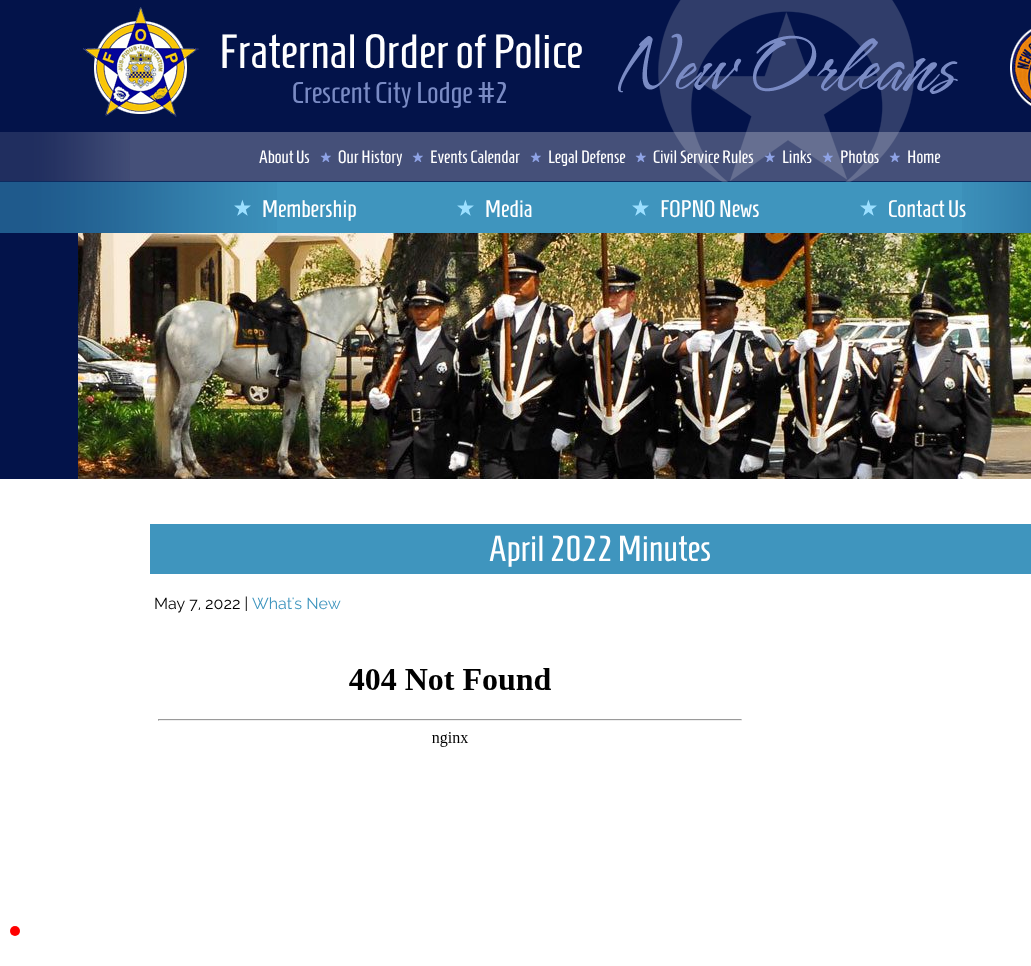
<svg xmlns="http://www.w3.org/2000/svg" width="1031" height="966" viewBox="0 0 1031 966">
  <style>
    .t1 { font: 48px Homenaje; fill: #fff; }
    .t2 { font: 30px Homenaje; fill: #7a8bc4; }
    .t3 { font: 18px Homenaje; fill: #fff; }
    .t4 { font: 24px Homenaje; fill: #fff; }
    .t5 { font: 36px Homenaje; fill: #fff; }
    .t6 { font: 16px Raleway; fill: #000; }
    .t7 { font: 16px Raleway; fill: #3f95be; }
  </style>
  <rect width="100%" height="100%" fill="#fff"/>
  <rect x="0" y="0" width="1031" height="132" fill="#03134a"/>
  <image x="83" y="7" width="116" height="110" href="images/1.png"/>
  <text x="219" y="68" class="t1">Fraternal Order of Police</text>
  <text x="292" y="103" class="t2">Crescent City Lodge #2</text>
  <rect x="0" y="132" width="1031" height="49" fill="#455079"/>
  <rect x="0" y="181" width="1031" height="1" fill="#0d2a5f"/>
  <image x="618" y="0" width="340" height="182" href="images/2.png"/>
  <image x="1010" y="29" width="21" height="77" href="images/3.png"/>
  <image x="0" y="132" width="130" height="49" href="images/4.png"/>
  <text x="259" y="163" class="t3">About Us</text>
  <image x="320" y="152" width="11" height="10" href="images/5.png"/>
  <text x="338" y="163" class="t3">Our History</text>
  <image x="412" y="152" width="11" height="10" href="images/5.png"/>
  <text x="430" y="163" class="t3">Events Calendar</text>
  <image x="530" y="152" width="11" height="10" href="images/5.png"/>
  <text x="548" y="163" class="t3">Legal Defense</text>
  <image x="635" y="152" width="11" height="10" href="images/5.png"/>
  <text x="653" y="163" class="t3">Civil Service Rules</text>
  <image x="764" y="152" width="11" height="10" href="images/6.png"/>
  <text x="782" y="163" class="t3">Links</text>
  <image x="822" y="152" width="11" height="10" href="images/7.png"/>
  <text x="840" y="163" class="t3">Photos</text>
  <image x="889" y="152" width="11" height="10" href="images/5.png"/>
  <text x="907" y="163" class="t3">Home</text>
  <rect x="0" y="182" width="1031" height="51" fill="#3f95be"/>
  <image x="0" y="182" width="277" height="51" href="images/8.png"/>
  <image x="234" y="199" width="17" height="17" href="images/9.png"/>
  <text x="262" y="217" class="t4">Membership</text>
  <image x="457" y="199" width="17" height="17" href="images/10.png"/>
  <text x="485" y="217" class="t4">Media</text>
  <image x="632" y="199" width="17" height="17" href="images/10.png"/>
  <text x="660" y="217" class="t4">FOPNO News</text>
  <image x="860" y="199" width="17" height="17" href="images/10.png"/>
  <image x="962" y="182" width="69" height="51" href="images/11.png"/>
  <text x="888" y="217" class="t4">Contact Us</text>
  <rect x="0" y="233" width="78" height="246" fill="#03134a"/>
  <image x="78" y="233" width="953" height="246" href="images/12.png"/>
  <rect x="150" y="524" width="881" height="50" fill="#3f95be"/>
  <text x="489" y="561" class="t5">April 2022 Minutes</text>
  <text x="154" y="609" class="t6">May 7, 2022 |</text>
  <text x="252" y="609" class="t7">What's New</text>
  <image x="158" y="668" width="584" height="79" href="images/13.png"/>
  <circle cx="15" cy="931" r="5" fill="#f00"/>
</svg>
